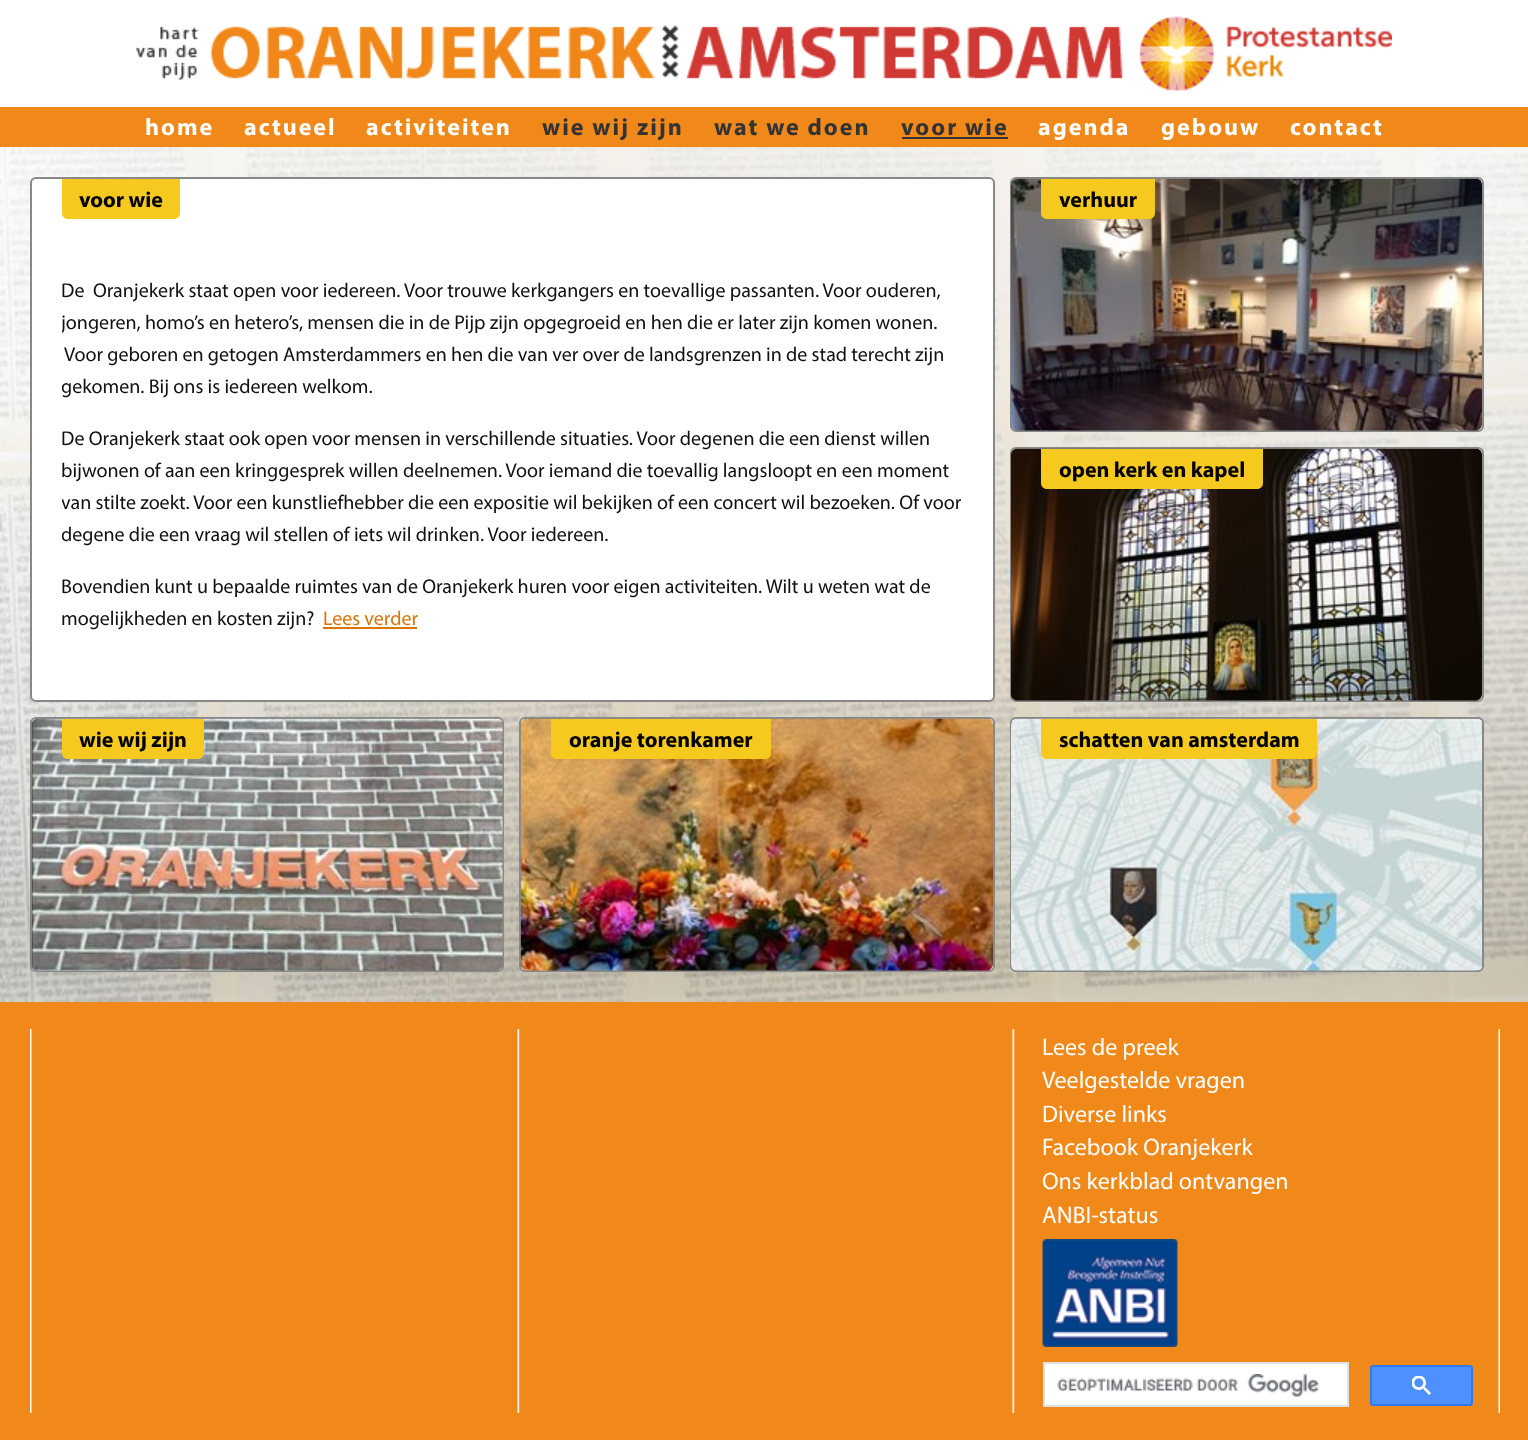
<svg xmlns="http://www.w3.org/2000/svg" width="1528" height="1454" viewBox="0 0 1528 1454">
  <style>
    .t1 { font: bold 24px Myriad; letter-spacing: 2px; fill: #fff; }
    .t2 { font: bold 24px Myriad; letter-spacing: 2px; fill: #333; }
    .t3 { font: bold 22px Myriad; fill: #000; }
    .t4 { font: 20px Myriad; fill: #111; }
    .t5 { font: 20px Myriad; fill: #dc7409; }
    .t6 { font: 24px Myriad; fill: #fff; }
  </style>
  <defs>
    <clipPath id="clip1"><rect x="62" y="254" width="916" height="420"/></clipPath>
  </defs>
  <rect width="100%" height="100%" fill="#fff"/>
  <image x="136" y="16" width="1256" height="76" href="images/1.png"/>
  <rect x="0" y="107" width="1528" height="40" fill="#f1881a"/>
  <text x="145" y="135" class="t1">home</text>
  <text x="244" y="135" class="t1">actueel</text>
  <text x="366" y="135" class="t1">activiteiten</text>
  <text x="542" y="135" class="t2">wie wij zijn</text>
  <text x="714" y="135" class="t2">wat we doen</text>
  <text x="901" y="135" class="t2">voor wie</text>
  <rect x="902" y="137" width="106" height="2" fill="#333"/>
  <text x="1038" y="135" class="t1">agenda</text>
  <text x="1161" y="135" class="t1">gebouw</text>
  <text x="1290" y="135" class="t1">contact</text>
  <image x="0" y="147" width="1528" height="855" href="images/2.png"/>
  <rect x="31" y="178" width="963" height="523" rx="5" fill="#fff" stroke="#888" stroke-width="2"/>
  <path d="M62 179H180V213C180 216.5 177.5 219 174 219H68C64.5 219 62 216.5 62 213Z" fill="#f6c91f"/>
  <text x="79" y="207" class="t3">voor wie</text>
  <text x="61" y="297" class="t4" xml:space="preserve">De  Oranjekerk staat open voor iedereen. Voor trouwe kerkgangers en toevallige passanten. Voor ouderen,</text>
  <g clip-path="url(#clip1)">
    <text x="61" y="329" class="t4">jongeren, homo’s en hetero’s, mensen die in de Pijp zijn opgegroeid en hen die er later zijn komen wonen.</text>
  </g>
  <text x="64" y="361" class="t4">Voor geboren en getogen Amsterdammers en hen die van ver over de landsgrenzen in de stad terecht zijn</text>
  <g clip-path="url(#clip1)">
    <text x="61" y="393" class="t4">gekomen. Bij ons is iedereen welkom.</text>
  </g>
  <text x="61" y="445" class="t4">De Oranjekerk staat ook open voor mensen in verschillende situaties. Voor degenen die een dienst willen</text>
  <text x="61" y="477" class="t4">bijwonen of aan een kringgesprek willen deelnemen. Voor iemand die toevallig langsloopt en een moment</text>
  <g clip-path="url(#clip1)">
    <text x="61" y="509" class="t4">van stilte zoekt. Voor een kunstliefhebber die een expositie wil bekijken of een concert wil bezoeken. Of voor</text>
    <text x="61" y="541" class="t4">degene die een vraag wil stellen of iets wil drinken. Voor iedereen.</text>
  </g>
  <text x="61" y="593" class="t4">Bovendien kunt u bepaalde ruimtes van de Oranjekerk huren voor eigen activiteiten. Wilt u weten wat de</text>
  <text x="61" y="625" class="t4">mogelijkheden en kosten zijn?</text>
  <text x="323" y="625" class="t5">Lees verder</text>
  <rect x="323" y="627" width="94" height="2" fill="#dc7409"/>
  <rect x="1011" y="178" width="472" height="253" rx="5" fill="#fff" stroke="#888" stroke-width="2"/>
  <image x="1011" y="178" width="471" height="253" href="images/3.png"/>
  <path d="M1041 179H1155V213C1155 216.5 1152.5 219 1149 219H1047C1043.5 219 1041 216.5 1041 213Z" fill="#f6c91f"/>
  <text x="1059" y="207" class="t3">verhuur</text>
  <rect x="1011" y="448" width="472" height="253" rx="5" fill="#fff" stroke="#888" stroke-width="2"/>
  <image x="1011" y="448" width="471" height="253" href="images/4.png"/>
  <path d="M1041 449H1263V483C1263 486.5 1260.5 489 1257 489H1047C1043.5 489 1041 486.5 1041 483Z" fill="#f6c91f"/>
  <text x="1059" y="477" class="t3">open kerk en kapel</text>
  <rect x="31" y="718" width="472" height="253" rx="5" fill="#fff" stroke="#888" stroke-width="2"/>
  <image x="31" y="718" width="472" height="253" href="images/5.png"/>
  <path d="M62 719H204V753C204 756.5 201.5 759 198 759H68C64.5 759 62 756.5 62 753Z" fill="#f6c91f"/>
  <text x="79" y="747" class="t3">wie wij zijn</text>
  <rect x="520" y="718" width="474" height="253" rx="5" fill="#fff" stroke="#888" stroke-width="2"/>
  <image x="520" y="718" width="473" height="253" href="images/6.png"/>
  <path d="M551 719H771V753C771 756.5 768.5 759 765 759H557C553.5 759 551 756.5 551 753Z" fill="#f6c91f"/>
  <text x="569" y="747" class="t3">oranje torenkamer</text>
  <rect x="1011" y="718" width="472" height="253" rx="5" fill="#fff" stroke="#888" stroke-width="2"/>
  <image x="1011" y="718" width="471" height="253" href="images/7.png"/>
  <path d="M1041 719H1317V753C1317 756.5 1314.5 759 1311 759H1047C1043.5 759 1041 756.5 1041 753Z" fill="#f6c91f"/>
  <text x="1059" y="747" class="t3">schatten van amsterdam</text>
  <rect x="0" y="1002" width="1528" height="438" fill="#f1881a"/>
  <image x="30" y="1029" width="1470" height="384" href="images/8.png"/>
  <text x="1042" y="1055" class="t6">Lees de preek</text>
  <text x="1042" y="1088" class="t6">Veelgestelde vragen</text>
  <text x="1042" y="1122" class="t6">Diverse links</text>
  <text x="1042" y="1155" class="t6">Facebook Oranjekerk</text>
  <text x="1042" y="1189" class="t6">Ons kerkblad ontvangen</text>
  <image x="1042" y="1239" width="136" height="108" href="images/9.png"/>
  <text x="1042" y="1223" class="t6">ANBI-status</text>
  <rect x="1044" y="1363" width="304" height="43" fill="#fff" stroke="#dfe1e5" stroke-width="2"/>
  <image x="1057" y="1374" width="262" height="23" href="images/10.png"/>
  <rect x="1371" y="1366" width="101" height="39" rx="2" fill="#4d90fe" stroke="#3079ed" stroke-width="2"/>
  <image x="1412" y="1376" width="19" height="19" href="images/11.png"/>
</svg>
